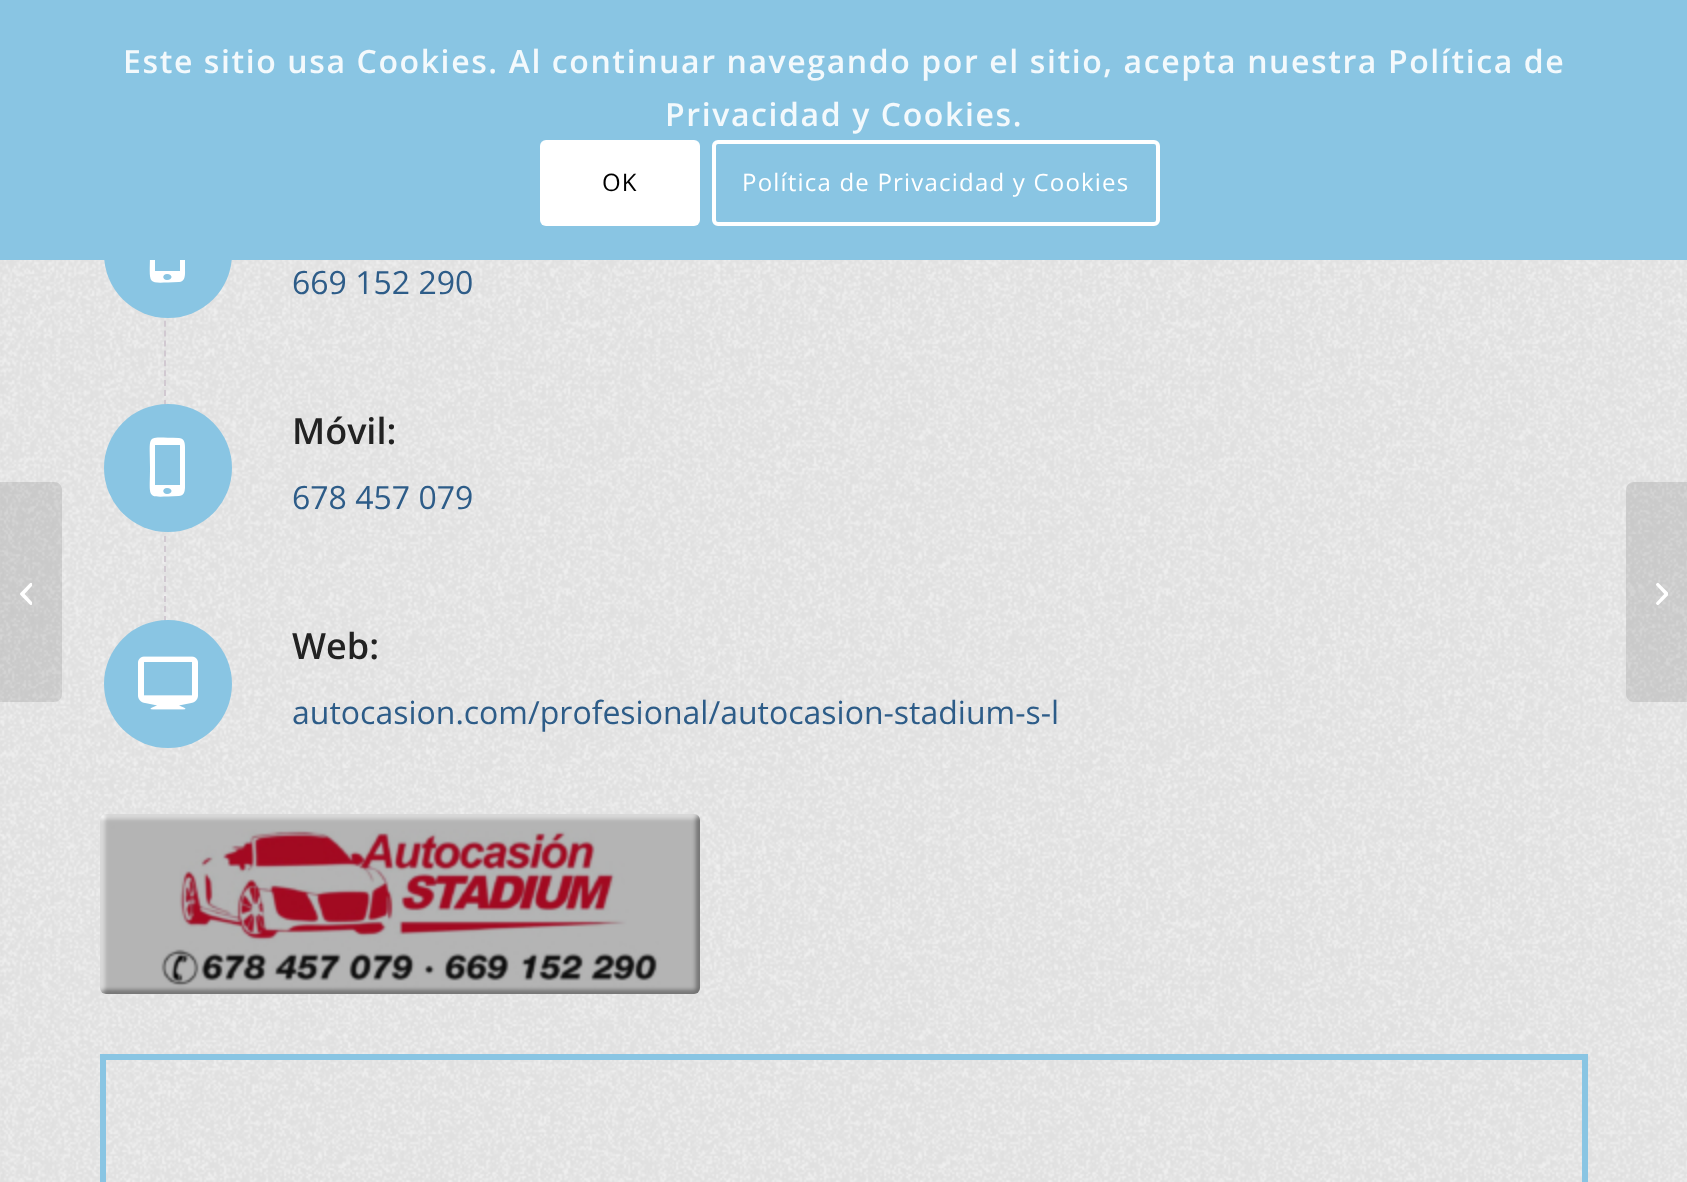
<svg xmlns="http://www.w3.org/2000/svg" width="1687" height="1182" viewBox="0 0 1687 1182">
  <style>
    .t1 { font: 600 32px Open Sans; letter-spacing: 1.6px; fill: #f3f9fc; }
    .t2 { font: 24px Open Sans; letter-spacing: 1.2px; fill: #000; }
    .t3 { font: 24px Open Sans; letter-spacing: 1.2px; fill: #fff; }
    .t4 { font: 32px Open Sans; fill: #2d5c88; }
    .t5 { font: 600 36px Open Sans; fill: #222; }
  </style>
  <rect width="100%" height="100%" fill="#fff"/>
  <image x="0" y="260" width="1687" height="922" href="images/2.png"/>
  <path d="M165 192V406" fill="none" stroke="#d1c9d1" stroke-width="2" stroke-dasharray="6 3.9"/>
  <circle cx="168" cy="254" r="64" fill="#89c5e3"/>
  <path d="M179 224C186 224 185 233 185 237V269C185 273 186 282 179 282C145 283 150 287 150 253C150 218 145 224 179 224ZM167 280C173 280 173 274 167 274C162 274 162 280 167 280ZM180 271V231H155V271Z" fill="#fff"/>
  <rect x="0" y="0" width="1687" height="260" fill="#89c5e3"/>
  <text x="123" y="73" class="t1">Este sitio usa Cookies. Al continuar navegando por el sitio, acepta nuestra Política de</text>
  <text x="665" y="126" class="t1">Privacidad y Cookies.</text>
  <rect x="540" y="140" width="160" height="86" rx="6" fill="#fff"/>
  <text x="602" y="191" class="t2">OK</text>
  <rect x="714" y="142" width="444" height="82" rx="4" fill="none" stroke="#fff" stroke-width="4"/>
  <text x="742" y="191" class="t3">Política de Privacidad y Cookies</text>
  <path d="M0 482H54C58.5 482 62 485.5 62 490V694C62 698.5 58.5 702 54 702H0Z" fill="#0000001a"/>
  <image x="20" y="583" width="12" height="22" href="images/1.png"/>
  <text x="292" y="294" class="t4">669 152 290</text>
  <path d="M165 406V622" fill="none" stroke="#d1c9d1" stroke-width="2" stroke-dasharray="6 4"/>
  <circle cx="168" cy="468" r="64" fill="#89c5e3"/>
  <path d="M179 438C186 438 185 447 185 451V483C185 487 186 496 179 496C145 497 150 501 150 467C150 432 145 438 179 438ZM167 494C173 494 173 488 167 488C162 488 162 494 167 494ZM180 485V445H155V485Z" fill="#fff"/>
  <text x="292" y="444" class="t5">Móvil:</text>
  <text x="292" y="509" class="t4">678 457 079</text>
  <circle cx="168" cy="684" r="64" fill="#89c5e3"/>
  <image x="138" y="656" width="60" height="54" href="images/3.png"/>
  <text x="292" y="659" class="t5">Web:</text>
  <text x="292" y="724" class="t4">autocasion.com/profesional/autocasion-stadium-s-l</text>
  <image x="100" y="814" width="600" height="180" href="images/4.png"/>
  <rect x="103" y="1057" width="1482" height="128" fill="none" stroke="#89c5e3" stroke-width="6"/>
  <path d="M1634 482H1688V702H1634C1629.5 702 1626 698.5 1626 694V490C1626 485.5 1629.5 482 1634 482Z" fill="#0000001a"/>
  <image x="1656" y="582" width="12" height="23" href="images/5.png"/>
</svg>
